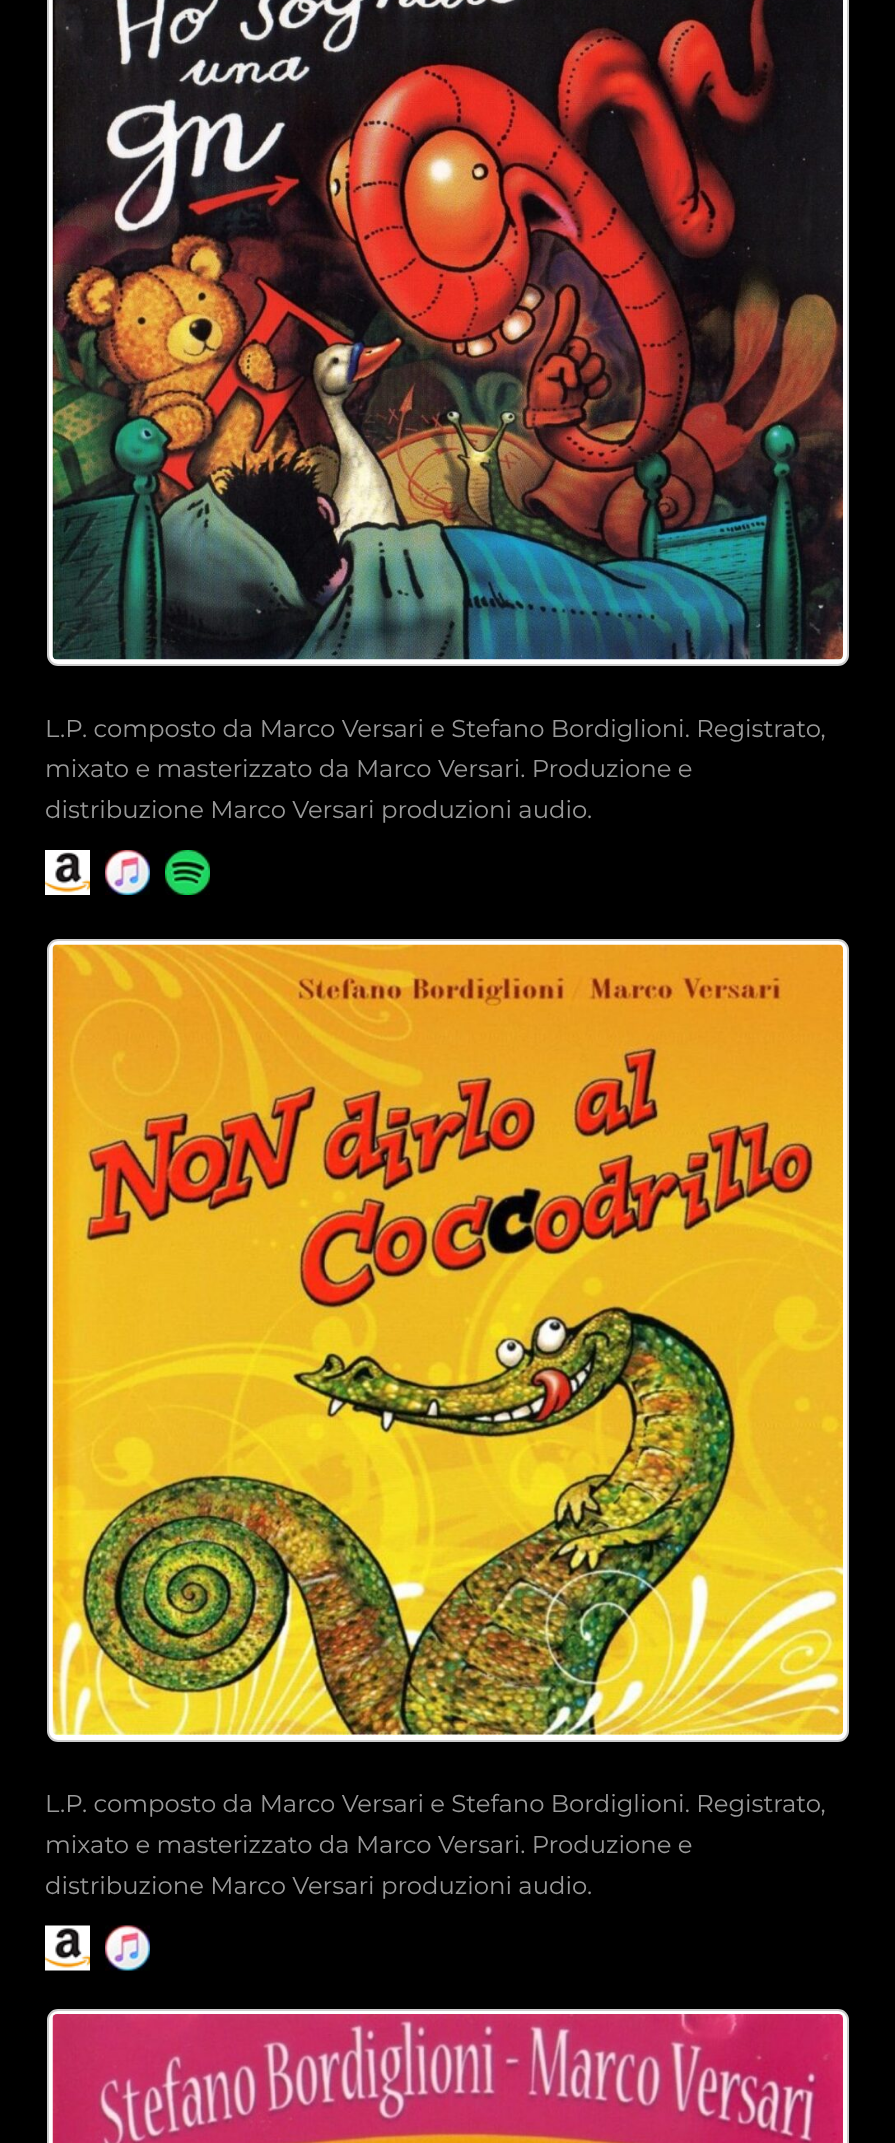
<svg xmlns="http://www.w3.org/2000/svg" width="895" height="2143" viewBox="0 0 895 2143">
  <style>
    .t1 { font: 24.3px Montserrat; fill: #999; }
  </style>
  <rect width="100%" height="100%" fill="#000"/>
  <rect x="48" y="-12" width="800" height="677" rx="10" fill="#fff" stroke="#ccc" stroke-width="2"/>
  <image x="52" y="0" width="791" height="660" href="images/1.png"/>
  <text x="45" y="737" class="t1">L.P. composto da Marco Versari e Stefano Bordiglioni. Registrato,</text>
  <text x="45" y="777" class="t1">mixato e masterizzato da Marco Versari. Produzione e</text>
  <text x="45" y="818" class="t1">distribuzione Marco Versari produzioni audio.</text>
  <image x="45" y="850" width="45" height="45" href="images/2.png"/>
  <image x="105" y="850" width="45" height="45" href="images/3.png"/>
  <image x="165" y="850" width="45" height="45" href="images/4.png"/>
  <rect x="48" y="940" width="800" height="801" rx="10" fill="#fff" stroke="#ccc" stroke-width="2"/>
  <image x="52" y="944" width="791" height="791" href="images/5.png"/>
  <text x="45" y="1812" class="t1">L.P. composto da Marco Versari e Stefano Bordiglioni. Registrato,</text>
  <text x="45" y="1853" class="t1">mixato e masterizzato da Marco Versari. Produzione e</text>
  <text x="45" y="1894" class="t1">distribuzione Marco Versari produzioni audio.</text>
  <image x="45" y="1925" width="45" height="46" href="images/6.png"/>
  <image x="105" y="1925" width="45" height="46" href="images/7.png"/>
  <rect x="48" y="2010" width="800" height="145" rx="10" fill="#fff" stroke="#ccc" stroke-width="2"/>
  <image x="52" y="2014" width="791" height="129" href="images/8.png"/>
</svg>
